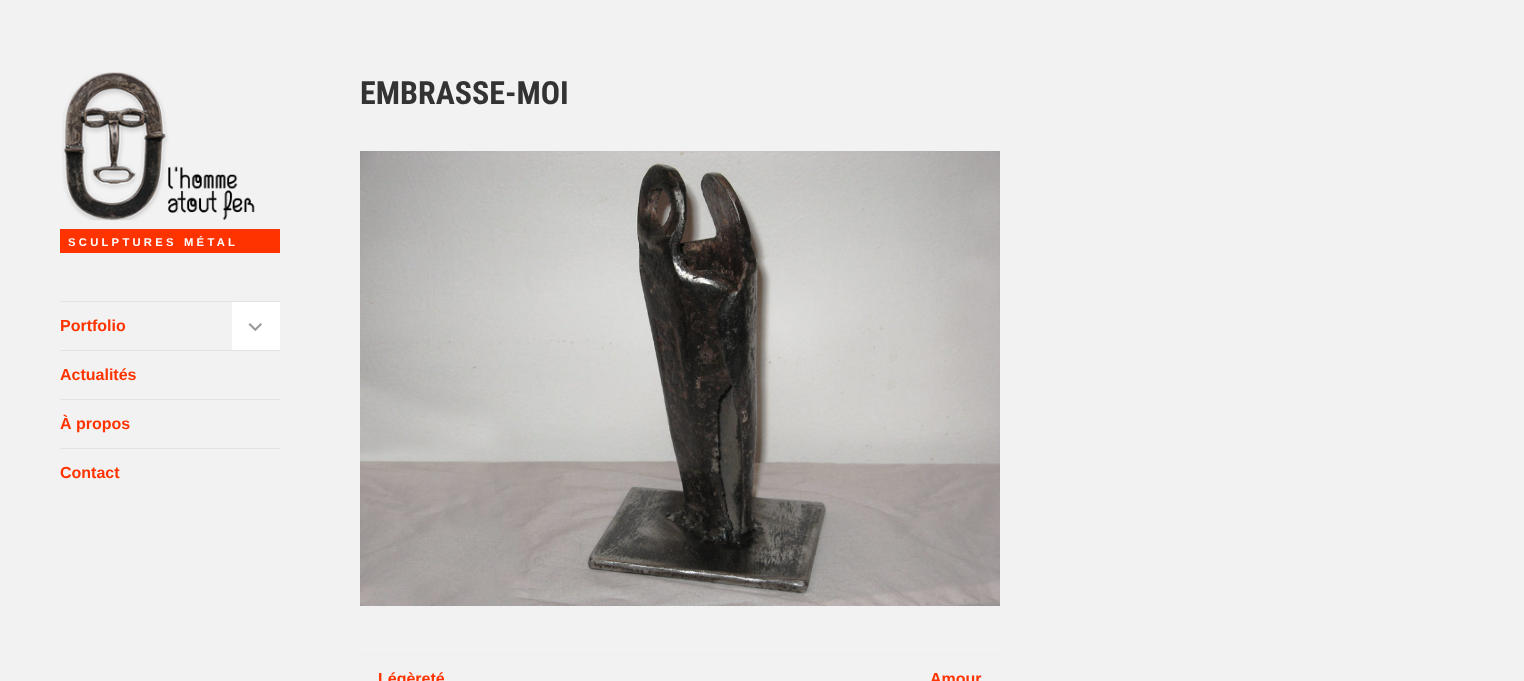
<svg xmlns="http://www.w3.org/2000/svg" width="1524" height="681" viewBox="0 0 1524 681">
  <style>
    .t1 { font: bold 11.25px Arimo; letter-spacing: 3.25px; fill: #fff; }
    .t2 { font: bold 16px Arimo; fill: #f30; }
    .t3 { font: bold 32px Roboto Condensed; fill: #333; }
  </style>
  <rect width="100%" height="100%" fill="#f2f2f2"/>
  <image x="62" y="72" width="193" height="149" href="images/1.png"/>
  <rect x="60" y="229" width="220" height="24" fill="#f30"/>
  <text x="68" y="246" class="t1">SCULPTURES</text>
  <text x="184" y="246" class="t1">MÉTAL</text>
  <rect x="60" y="301" width="220" height="1" fill="#e3e3e3"/>
  <text x="60" y="331" class="t2">Portfolio</text>
  <rect x="232" y="302" width="48" height="48" fill="#fff"/>
  <image x="248" y="323" width="14" height="9" href="images/2.png"/>
  <rect x="60" y="350" width="220" height="1" fill="#e3e3e3"/>
  <text x="60" y="380" class="t2">Actualités</text>
  <rect x="60" y="399" width="220" height="1" fill="#e3e3e3"/>
  <text x="60" y="429" class="t2">À propos</text>
  <rect x="60" y="448" width="220" height="1" fill="#e3e3e3"/>
  <text x="60" y="478" class="t2">Contact</text>
  <text x="360" y="104" class="t3">EMBRASSE-MOI</text>
  <image x="360" y="151" width="640" height="455" href="images/3.png"/>
  <rect x="360" y="654" width="640" height="1" fill="#eee"/>
  <text x="378" y="684" class="t2">Légèreté</text>
  <text x="930" y="684" class="t2">Amour</text>
</svg>
